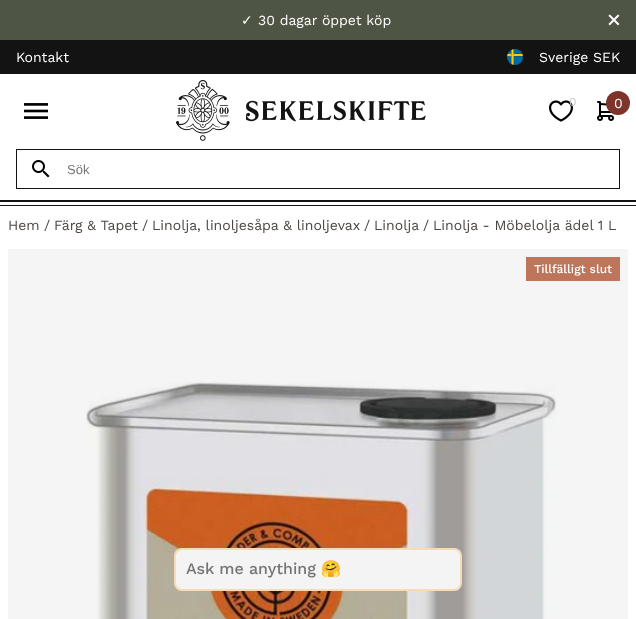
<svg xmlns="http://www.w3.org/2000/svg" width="636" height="619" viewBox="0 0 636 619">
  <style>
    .t1 { font: 14px DejaVu Sans; fill: #fff; }
    .t2 { font: 14px Work Sans; fill: #fff; }
    .t3 { font: 12px Work Sans; fill: #c7c7c7; }
    .t4 { font: 13px Liberation Sans; fill: #757575; }
    .t5 { font: 14px Work Sans; fill: #4a4642; }
    .t6 { font: 500 12px Work Sans; fill: #fff; }
    .t7 { font: 500 16px Work Sans; fill: #757575; }
    .t8 { font: 16px Noto Color Emoji; fill: #757575; }
  </style>
  <rect width="100%" height="100%" fill="#fff"/>
  <rect x="8" y="249" width="620" height="370" fill="#f5f5f5"/>
  <rect x="0" y="0" width="636" height="40" fill="#4e5544"/>
  <text x="241" y="25" class="t1">✓</text>
  <text x="258" y="25" class="t2">30 dagar öppet köp</text>
  <image x="608" y="14" width="12" height="12" href="images/1.png"/>
  <rect x="0" y="205" width="636" height="1" fill="#141313"/>
  <rect x="0" y="40" width="636" height="34" fill="#141313"/>
  <text x="16" y="62" class="t2">Kontakt</text>
  <image x="507" y="49" width="16" height="16" href="images/2.png"/>
  <text x="539" y="62" class="t2">Sverige SEK</text>
  <image x="24" y="103" width="24" height="16" href="images/3.png"/>
  <image x="176" y="80" width="250" height="61" href="images/4.png"/>
  <image x="549" y="100" width="24" height="22" href="images/5.png"/>
  <text x="569" y="106" class="t3">0</text>
  <image x="597" y="101" width="17" height="20" href="images/6.png"/>
  <circle cx="618" cy="103" r="12" fill="#7d342b"/>
  <text x="614" y="108" class="t2">0</text>
  <rect x="16.5" y="149.5" width="603" height="39" fill="none" stroke="#141313"/>
  <image x="32" y="160" width="18" height="18" href="images/7.png"/>
  <text x="67" y="174" class="t4">Sök</text>
  <rect x="0" y="200" width="636" height="2" fill="#141313"/>
  <text x="8" y="230" class="t5">Hem</text>
  <text x="44" y="230" class="t5">/</text>
  <text x="54" y="230" class="t5">Färg &amp; Tapet</text>
  <text x="142" y="230" class="t5">/</text>
  <text x="152" y="230" class="t5">Linolja, linoljesåpa &amp; linoljevax</text>
  <text x="364" y="230" class="t5">/</text>
  <text x="374" y="230" class="t5">Linolja</text>
  <text x="423" y="230" class="t5">/</text>
  <text x="433" y="230" class="t5">Linolja - Möbelolja ädel 1 L</text>
  <rect x="526" y="257" width="94" height="24" fill="#bd755b"/>
  <text x="534" y="273" class="t6">Tillfälligt slut</text>
  <image x="86" y="381" width="470" height="238" href="images/8.png"/>
  <rect x="174" y="548" width="288" height="43" rx="8" fill="#f4f4f4"/>
  <rect x="175" y="549" width="286" height="41" rx="7" fill="none" stroke="#ffa0284d" stroke-width="2"/>
  <text x="186" y="574" class="t7">Ask me anything</text>
  <text x="321" y="574" class="t8">🤗</text>
</svg>
